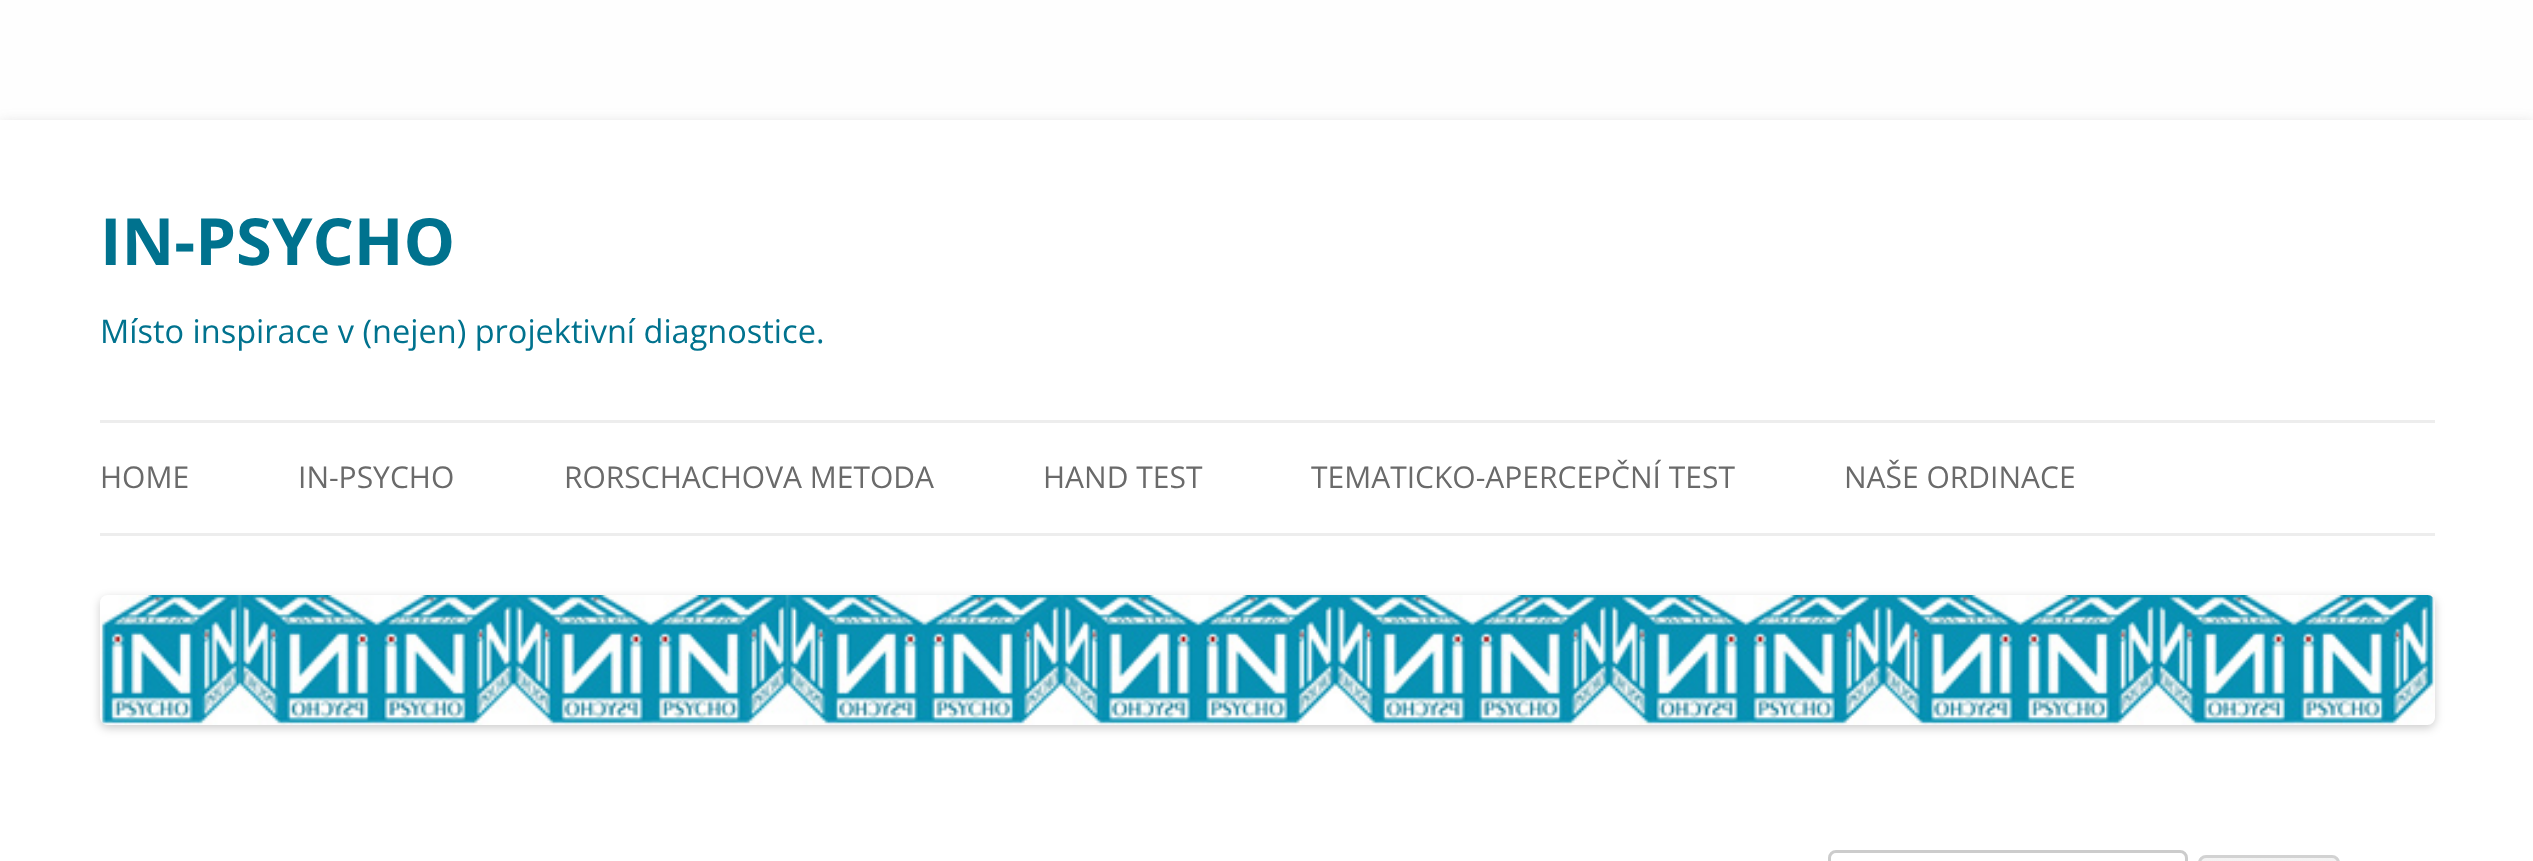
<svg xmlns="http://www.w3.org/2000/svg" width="2533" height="861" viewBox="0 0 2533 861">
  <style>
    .t1 { font: bold 65px Open Sans; fill: #00728e; }
    .t2 { font: 32.5px Open Sans; fill: #00728e; }
    .t3 { font: 30px Open Sans; fill: #6a6a6a; }
  </style>
  <defs>
    <clipPath id="clip1"><rect x="2198" y="855" width="142" height="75" rx="8"/></clipPath>
    <linearGradient id="g1" gradientUnits="userSpaceOnUse" x1="2269" y1="858" x2="2269" y2="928"><stop offset="0" stop-color="#f4f4f4"/><stop offset="1" stop-color="#e6e6e6"/></linearGradient>
  </defs>
  <rect width="100%" height="100%" fill="#fff"/>
  <image x="0" y="0" width="2533" height="120" href="images/1.png"/>
  <rect x="0" y="125" width="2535" height="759" fill="#6464644d" filter="blur(7.5px)"/>
  <rect x="0" y="120" width="2533" height="741" fill="#fff"/>
  <text x="100" y="265" class="t1">IN-PSYCHO</text>
  <text x="100" y="343" class="t2">Místo inspirace v (nejen) projektivní diagnostice.</text>
  <rect x="100" y="420" width="2335" height="3" fill="#ededed"/>
  <rect x="100" y="533" width="2335" height="3" fill="#ededed"/>
  <text x="100" y="488" class="t3">HOME</text>
  <text x="298" y="488" class="t3">IN-PSYCHO</text>
  <text x="564" y="488" class="t3">RORSCHACHOVA METODA</text>
  <text x="1043" y="488" class="t3">HAND TEST</text>
  <text x="1311" y="488" class="t3">TEMATICKO-APERCEPČNÍ TEST</text>
  <text x="1844" y="488" class="t3">NAŠE ORDINACE</text>
  <rect x="100" y="598" width="2335" height="130" rx="8" fill="#00000033" filter="blur(5px)"/>
  <image x="100" y="595" width="2335" height="130" href="images/2.png"/>
  <rect x="1829.5" y="851.5" width="357" height="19" rx="6.5" fill="none" stroke="#ccc" stroke-width="3"/>
  <g clip-path="url(#clip1)">
    <rect x="2198" y="858" width="142" height="3" fill="url(#g1)"/>
  </g>
  <rect x="2199.5" y="856.5" width="139" height="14" rx="6.5" fill="none" stroke="#d2d2d2" stroke-width="3"/>
</svg>
